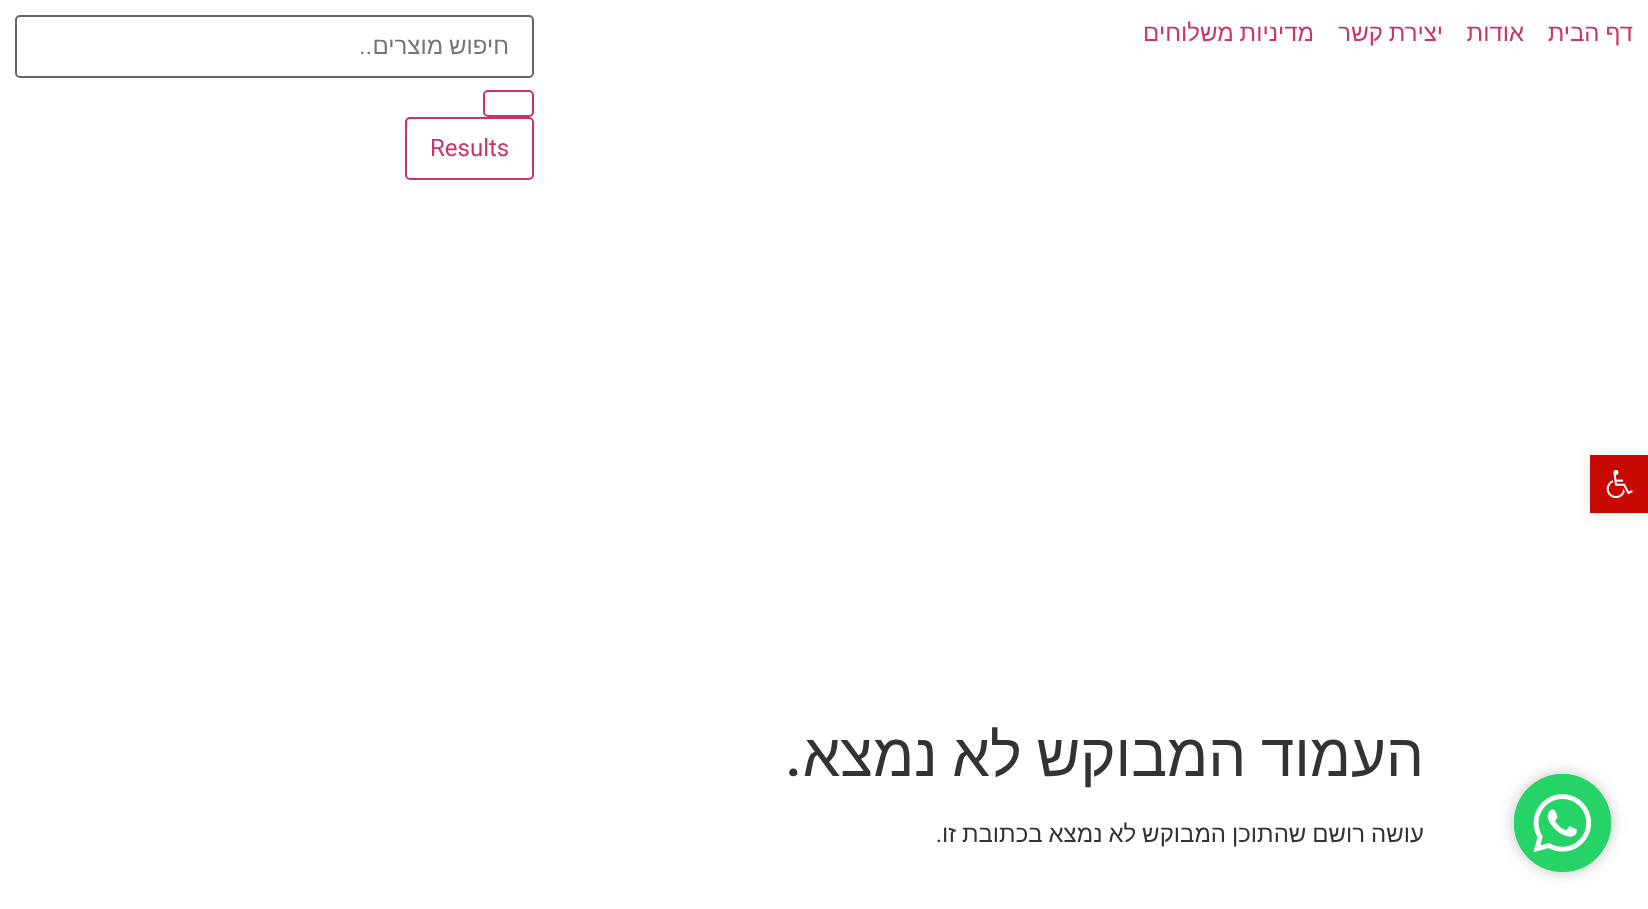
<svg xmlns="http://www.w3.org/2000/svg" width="1648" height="909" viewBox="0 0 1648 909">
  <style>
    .t1 { font: 24px Liberation Sans; direction: rtl; fill: #c36; }
    .t2 { font: 24px Liberation Sans; direction: rtl; fill: #757575; }
    .t3 { font: 24px Roboto; direction: rtl; fill: #757575; }
    .t4 { font: 24px Roboto; fill: #c36; }
    .t5 { font: 60px Liberation Sans; direction: rtl; fill: #333; }
    .t6 { font: 500 60px Roboto; direction: rtl; fill: #333; }
    .t7 { font: 24px Liberation Sans; direction: rtl; fill: #333; }
    .t8 { font: 24px Roboto; direction: rtl; fill: #333; }
  </style>
  <rect width="100%" height="100%" fill="#fff"/>
  <text x="1633" y="41" word-spacing="-0.75" class="t1">דף הבית</text>
  <text x="1524" y="41" class="t1">אודות</text>
  <text x="1443" y="41" word-spacing="-0.75" class="t1">יצירת קשר</text>
  <text x="1314" y="41" word-spacing="-0.75" class="t1">מדיניות משלוחים</text>
  <rect x="16" y="16" width="517" height="61" rx="4" fill="none" stroke="#666" stroke-width="2"/>
  <text x="509" y="54" word-spacing="-0.75" class="t2">חיפוש מוצרים</text>
  <text x="372" y="54" class="t3">..</text>
  <rect x="484" y="91" width="49" height="25" rx="4" fill="none" stroke="#c36" stroke-width="2"/>
  <rect x="406" y="118" width="127" height="61" rx="4" fill="none" stroke="#c36" stroke-width="2"/>
  <text x="430" y="156" class="t4">Results</text>
  <rect x="1590" y="455" width="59" height="58" fill="#0000001a" filter="blur(7.5px)"/>
  <rect x="1590" y="455" width="58" height="58" fill="#c70803"/>
  <image x="1606" y="470" width="27" height="28" href="images/1.png"/>
  <rect x="1514" y="774" width="97" height="98" rx="48.5" fill="#00000040" filter="blur(7.5px)"/>
  <rect x="1514" y="774" width="97" height="98" rx="48.5" fill="#25d366"/>
  <image x="1514" y="774" width="97" height="98" href="images/2.png"/>
  <text x="1424" y="776" word-spacing="-2" class="t5">העמוד המבוקש לא נמצא</text>
  <text x="802" y="776" class="t6">.</text>
  <text x="1424" y="842" word-spacing="-0.75" class="t7">עושה רושם שהתוכן המבוקש לא נמצא בכתובת זו</text>
  <text x="942" y="842" class="t8">.</text>
</svg>
